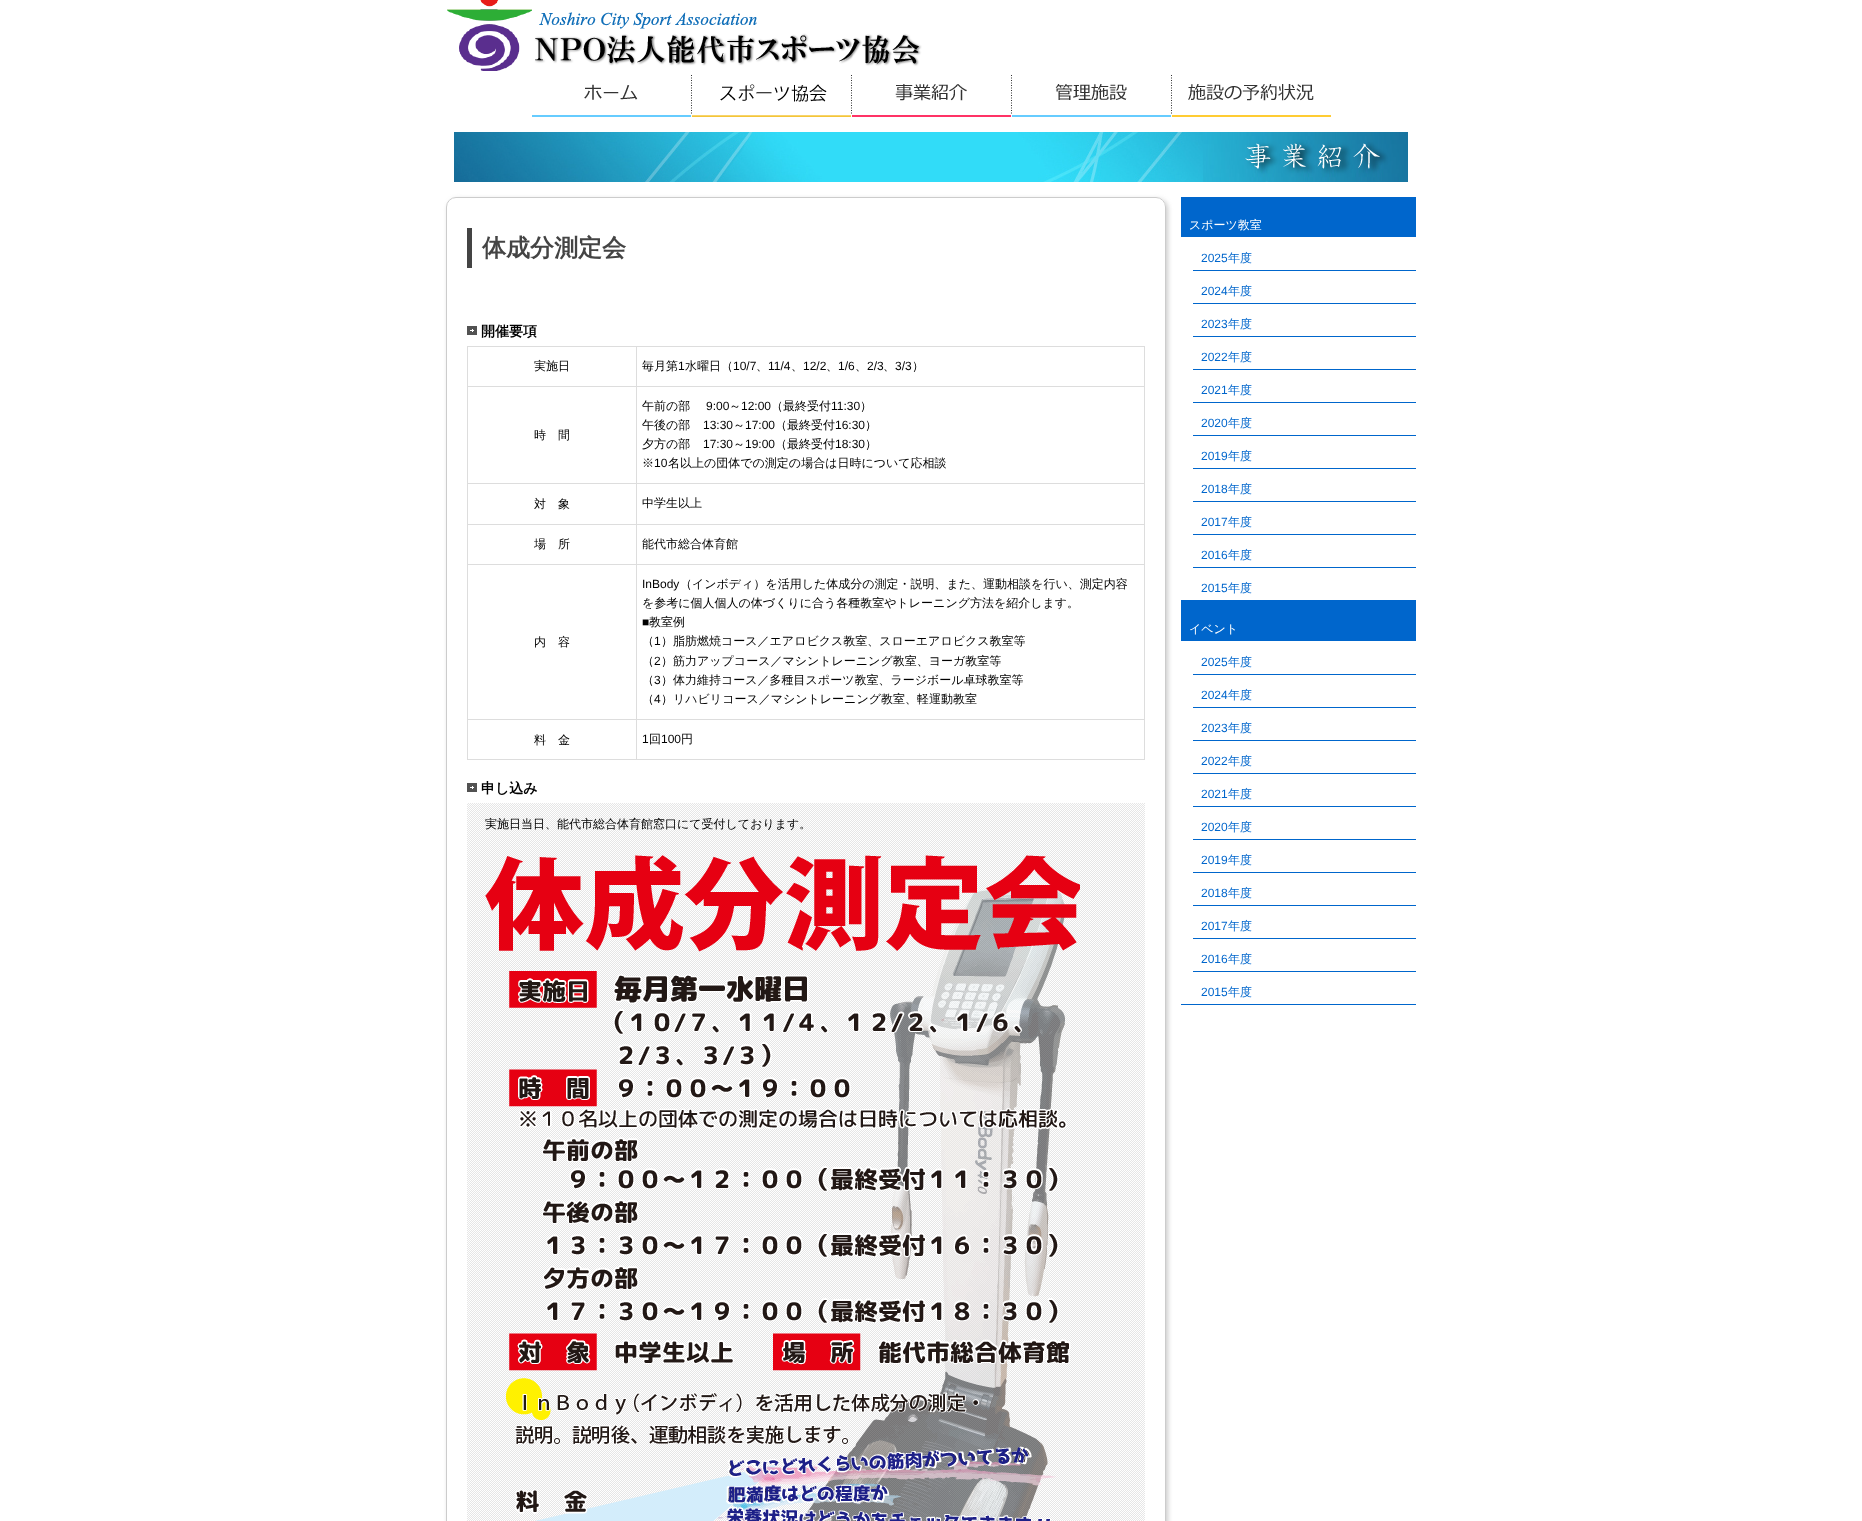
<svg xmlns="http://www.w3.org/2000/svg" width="1862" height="1521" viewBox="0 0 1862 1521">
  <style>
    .t1 { font: bold 24px WenQuanYi Zen Hei; fill: #444; }
    .t2 { font: bold 14px WenQuanYi Zen Hei; fill: #000; }
    .t3 { font: 500 12px WenQuanYi Zen Hei; fill: #000; }
    .t4 { font: 12px Liberation Sans; fill: #000; }
    .t5 { font: 500 12px WenQuanYi Zen Hei; fill: #fff; }
    .t6 { font: 12px Liberation Sans; fill: #06c; }
    .t7 { font: 500 12px WenQuanYi Zen Hei; fill: #06c; }
  </style>
  <defs>
    <clipPath id="clip1"><path d="M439 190H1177V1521H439ZM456 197H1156C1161.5 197 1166 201.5 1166 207V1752C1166 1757.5 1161.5 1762 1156 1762H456C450.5 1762 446 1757.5 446 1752V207C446 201.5 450.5 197 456 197Z" clip-rule="evenodd"/></clipPath>
  </defs>
  <rect width="100%" height="100%" fill="#fff"/>
  <image x="447" y="0" width="475" height="71" href="images/1.png"/>
  <image x="532" y="84" width="159" height="33" href="images/2.png"/>
  <image x="691" y="75" width="160" height="42" href="images/3.png"/>
  <image x="851" y="75" width="160" height="42" href="images/4.png"/>
  <image x="1011" y="75" width="160" height="42" href="images/5.png"/>
  <image x="1171" y="75" width="160" height="42" href="images/6.png"/>
  <image x="454" y="132" width="954" height="50" href="images/7.png"/>
  <g clip-path="url(#clip1)">
    <rect x="448" y="199" width="720" height="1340" rx="10" fill="#ccc" filter="blur(2.5px)"/>
  </g>
  <rect x="446.5" y="197.5" width="719" height="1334" rx="9.5" fill="none" stroke="#ccc"/>
  <rect x="467" y="228" width="5" height="40" fill="#444"/>
  <text x="482" y="256" class="t1">体成分測定会</text>
  <image x="467" y="326" width="10" height="9" href="images/8.png"/>
  <text x="481" y="336" class="t2">開催要項</text>
  <rect x="636" y="346" width="509" height="1" fill="#ddd"/>
  <rect x="636" y="386" width="509" height="1" fill="#ddd"/>
  <rect x="636" y="483" width="509" height="1" fill="#ddd"/>
  <rect x="636" y="524" width="509" height="1" fill="#ddd"/>
  <rect x="636" y="564" width="509" height="1" fill="#ddd"/>
  <rect x="636" y="719" width="509" height="1" fill="#ddd"/>
  <rect x="1144" y="719" width="1" height="41" fill="#ddd"/>
  <rect x="636" y="759" width="509" height="1" fill="#ddd"/>
  <rect x="636" y="719" width="1" height="41" fill="#ddd"/>
  <rect x="467" y="719" width="170" height="1" fill="#ddd"/>
  <rect x="636" y="564" width="1" height="156" fill="#ddd"/>
  <rect x="467" y="564" width="170" height="1" fill="#ddd"/>
  <rect x="636" y="524" width="1" height="41" fill="#ddd"/>
  <rect x="467" y="524" width="170" height="1" fill="#ddd"/>
  <rect x="636" y="483" width="1" height="42" fill="#ddd"/>
  <rect x="467" y="483" width="170" height="1" fill="#ddd"/>
  <rect x="636" y="386" width="1" height="98" fill="#ddd"/>
  <rect x="467" y="386" width="170" height="1" fill="#ddd"/>
  <rect x="636" y="346" width="1" height="41" fill="#ddd"/>
  <rect x="467" y="346" width="170" height="1" fill="#ddd"/>
  <rect x="467" y="759" width="170" height="1" fill="#ddd"/>
  <rect x="467" y="719" width="1" height="41" fill="#ddd"/>
  <rect x="467" y="564" width="1" height="156" fill="#ddd"/>
  <rect x="467" y="524" width="1" height="41" fill="#ddd"/>
  <rect x="467" y="483" width="1" height="42" fill="#ddd"/>
  <rect x="467" y="386" width="1" height="98" fill="#ddd"/>
  <rect x="467" y="346" width="1" height="41" fill="#ddd"/>
  <text x="534" y="370" class="t3">実施日</text>
  <rect x="1144" y="564" width="1" height="156" fill="#ddd"/>
  <rect x="1144" y="524" width="1" height="41" fill="#ddd"/>
  <rect x="1144" y="483" width="1" height="42" fill="#ddd"/>
  <rect x="1144" y="386" width="1" height="98" fill="#ddd"/>
  <rect x="1144" y="346" width="1" height="41" fill="#ddd"/>
  <text x="642" y="370" class="t3">毎月第</text>
  <text x="678" y="370" class="t4">1</text>
  <text x="685" y="370" class="t3">水曜日（</text>
  <text x="733" y="370" class="t4">10/7</text>
  <text x="756" y="370" class="t3">、</text>
  <text x="768" y="370" class="t4">11/4</text>
  <text x="791" y="370" class="t3">、</text>
  <text x="803" y="370" class="t4">12/2</text>
  <text x="826" y="370" class="t3">、</text>
  <text x="838" y="370" class="t4">1/6</text>
  <text x="855" y="370" class="t3">、</text>
  <text x="867" y="370" class="t4">2/3</text>
  <text x="883" y="370" class="t3">、</text>
  <text x="895" y="370" class="t4">3/3</text>
  <text x="912" y="370" class="t3">）</text>
  <text x="534" y="439" class="t3">時　間</text>
  <text x="642" y="410" class="t3">午前の部</text>
  <text x="706" y="410" class="t4">9:00</text>
  <text x="729" y="410" class="t3">～</text>
  <text x="741" y="410" class="t4">12:00</text>
  <text x="771" y="410" class="t3">（最終受付</text>
  <text x="831" y="410" class="t4">11:30</text>
  <text x="860" y="410" class="t3">）</text>
  <text x="642" y="429" class="t3">午後の部</text>
  <text x="703" y="429" class="t4">13:30</text>
  <text x="733" y="429" class="t3">～</text>
  <text x="745" y="429" class="t4">17:00</text>
  <text x="775" y="429" class="t3">（最終受付</text>
  <text x="835" y="429" class="t4">16:30</text>
  <text x="865" y="429" class="t3">）</text>
  <text x="642" y="448" class="t3">夕方の部</text>
  <text x="703" y="448" class="t4">17:30</text>
  <text x="733" y="448" class="t3">～</text>
  <text x="745" y="448" class="t4">19:00</text>
  <text x="775" y="448" class="t3">（最終受付</text>
  <text x="835" y="448" class="t4">18:30</text>
  <text x="865" y="448" class="t3">）</text>
  <text x="642" y="467" class="t3">※</text>
  <text x="654" y="467" class="t4">10</text>
  <text x="668" y="467" class="t3">名以上の団体での測定の場合は日時について応相談</text>
  <text x="534" y="508" class="t3">対　象</text>
  <text x="642" y="507" class="t3">中学生以上</text>
  <text x="534" y="548" class="t3">場　所</text>
  <text x="642" y="548" class="t3">能代市総合体育館</text>
  <text x="534" y="646" class="t3">内　容</text>
  <text x="642" y="588" class="t4">InBody</text>
  <text x="680" y="588" class="t3">（インボディ）を活用した体成分の測定・説明、また、運動相談を行い、測定内容</text>
  <text x="642" y="607" class="t3">を参考に個人個人の体づくりに合う各種教室やトレーニング方法を紹介します。</text>
  <text x="642" y="626" class="t4">■</text>
  <text x="649" y="626" class="t3">教室例</text>
  <text x="642" y="645" class="t3">（</text>
  <text x="654" y="645" class="t4">1</text>
  <text x="661" y="645" class="t3">）脂肪燃焼コース／エアロビクス教室、スローエアロビクス教室等</text>
  <text x="642" y="665" class="t3">（</text>
  <text x="654" y="665" class="t4">2</text>
  <text x="661" y="665" class="t3">）筋力アップコース／マシントレーニング教室、ヨーガ教室等</text>
  <text x="642" y="684" class="t3">（</text>
  <text x="654" y="684" class="t4">3</text>
  <text x="661" y="684" class="t3">）体力維持コース／多種目スポーツ教室、ラージボール卓球教室等</text>
  <text x="642" y="703" class="t3">（</text>
  <text x="654" y="703" class="t4">4</text>
  <text x="661" y="703" class="t3">）リハビリコース／マシントレーニング教室、軽運動教室</text>
  <text x="534" y="744" class="t3">料　金</text>
  <text x="642" y="743" class="t4">1</text>
  <text x="649" y="743" class="t3">回</text>
  <text x="661" y="743" class="t4">100</text>
  <text x="681" y="743" class="t3">円</text>
  <image x="467" y="783" width="10" height="9" href="images/8.png"/>
  <text x="481" y="793" class="t2">申し込み</text>
  <image x="467" y="803" width="678" height="718" href="images/9.png"/>
  <text x="485" y="828" class="t3">実施日当日、能代市総合体育館窓口にて受付しております。</text>
  <image x="485" y="855" width="595" height="666" href="images/10.png"/>
  <rect x="1181" y="197" width="235" height="40" fill="#06c"/>
  <text x="1189" y="229" class="t5">スポーツ教室</text>
  <rect x="1181" y="600" width="235" height="41" fill="#06c"/>
  <rect x="1193" y="270" width="223" height="1" fill="#06c"/>
  <text x="1201" y="262" class="t6">2025</text>
  <text x="1228" y="262" class="t7">年度</text>
  <rect x="1193" y="303" width="223" height="1" fill="#06c"/>
  <text x="1201" y="295" class="t6">2024</text>
  <text x="1228" y="295" class="t7">年度</text>
  <rect x="1193" y="336" width="223" height="1" fill="#06c"/>
  <text x="1201" y="328" class="t6">2023</text>
  <text x="1228" y="328" class="t7">年度</text>
  <rect x="1193" y="369" width="223" height="1" fill="#06c"/>
  <text x="1201" y="361" class="t6">2022</text>
  <text x="1228" y="361" class="t7">年度</text>
  <rect x="1193" y="402" width="223" height="1" fill="#06c"/>
  <text x="1201" y="394" class="t6">2021</text>
  <text x="1228" y="394" class="t7">年度</text>
  <rect x="1193" y="435" width="223" height="1" fill="#06c"/>
  <text x="1201" y="427" class="t6">2020</text>
  <text x="1228" y="427" class="t7">年度</text>
  <rect x="1193" y="468" width="223" height="1" fill="#06c"/>
  <text x="1201" y="460" class="t6">2019</text>
  <text x="1228" y="460" class="t7">年度</text>
  <rect x="1193" y="501" width="223" height="1" fill="#06c"/>
  <text x="1201" y="493" class="t6">2018</text>
  <text x="1228" y="493" class="t7">年度</text>
  <rect x="1193" y="534" width="223" height="1" fill="#06c"/>
  <text x="1201" y="526" class="t6">2017</text>
  <text x="1228" y="526" class="t7">年度</text>
  <rect x="1193" y="567" width="223" height="1" fill="#06c"/>
  <text x="1201" y="559" class="t6">2016</text>
  <text x="1228" y="559" class="t7">年度</text>
  <text x="1201" y="592" class="t6">2015</text>
  <text x="1228" y="592" class="t7">年度</text>
  <text x="1189" y="633" class="t5">イベント</text>
  <rect x="1181" y="1004" width="235" height="1" fill="#06c"/>
  <rect x="1193" y="674" width="223" height="1" fill="#06c"/>
  <text x="1201" y="666" class="t6">2025</text>
  <text x="1228" y="666" class="t7">年度</text>
  <rect x="1193" y="707" width="223" height="1" fill="#06c"/>
  <text x="1201" y="699" class="t6">2024</text>
  <text x="1228" y="699" class="t7">年度</text>
  <rect x="1193" y="740" width="223" height="1" fill="#06c"/>
  <text x="1201" y="732" class="t6">2023</text>
  <text x="1228" y="732" class="t7">年度</text>
  <rect x="1193" y="773" width="223" height="1" fill="#06c"/>
  <text x="1201" y="765" class="t6">2022</text>
  <text x="1228" y="765" class="t7">年度</text>
  <rect x="1193" y="806" width="223" height="1" fill="#06c"/>
  <text x="1201" y="798" class="t6">2021</text>
  <text x="1228" y="798" class="t7">年度</text>
  <rect x="1193" y="839" width="223" height="1" fill="#06c"/>
  <text x="1201" y="831" class="t6">2020</text>
  <text x="1228" y="831" class="t7">年度</text>
  <rect x="1193" y="872" width="223" height="1" fill="#06c"/>
  <text x="1201" y="864" class="t6">2019</text>
  <text x="1228" y="864" class="t7">年度</text>
  <rect x="1193" y="905" width="223" height="1" fill="#06c"/>
  <text x="1201" y="897" class="t6">2018</text>
  <text x="1228" y="897" class="t7">年度</text>
  <rect x="1193" y="938" width="223" height="1" fill="#06c"/>
  <text x="1201" y="930" class="t6">2017</text>
  <text x="1228" y="930" class="t7">年度</text>
  <rect x="1193" y="971" width="223" height="1" fill="#06c"/>
  <text x="1201" y="963" class="t6">2016</text>
  <text x="1228" y="963" class="t7">年度</text>
  <text x="1201" y="996" class="t6">2015</text>
  <text x="1228" y="996" class="t7">年度</text>
</svg>
